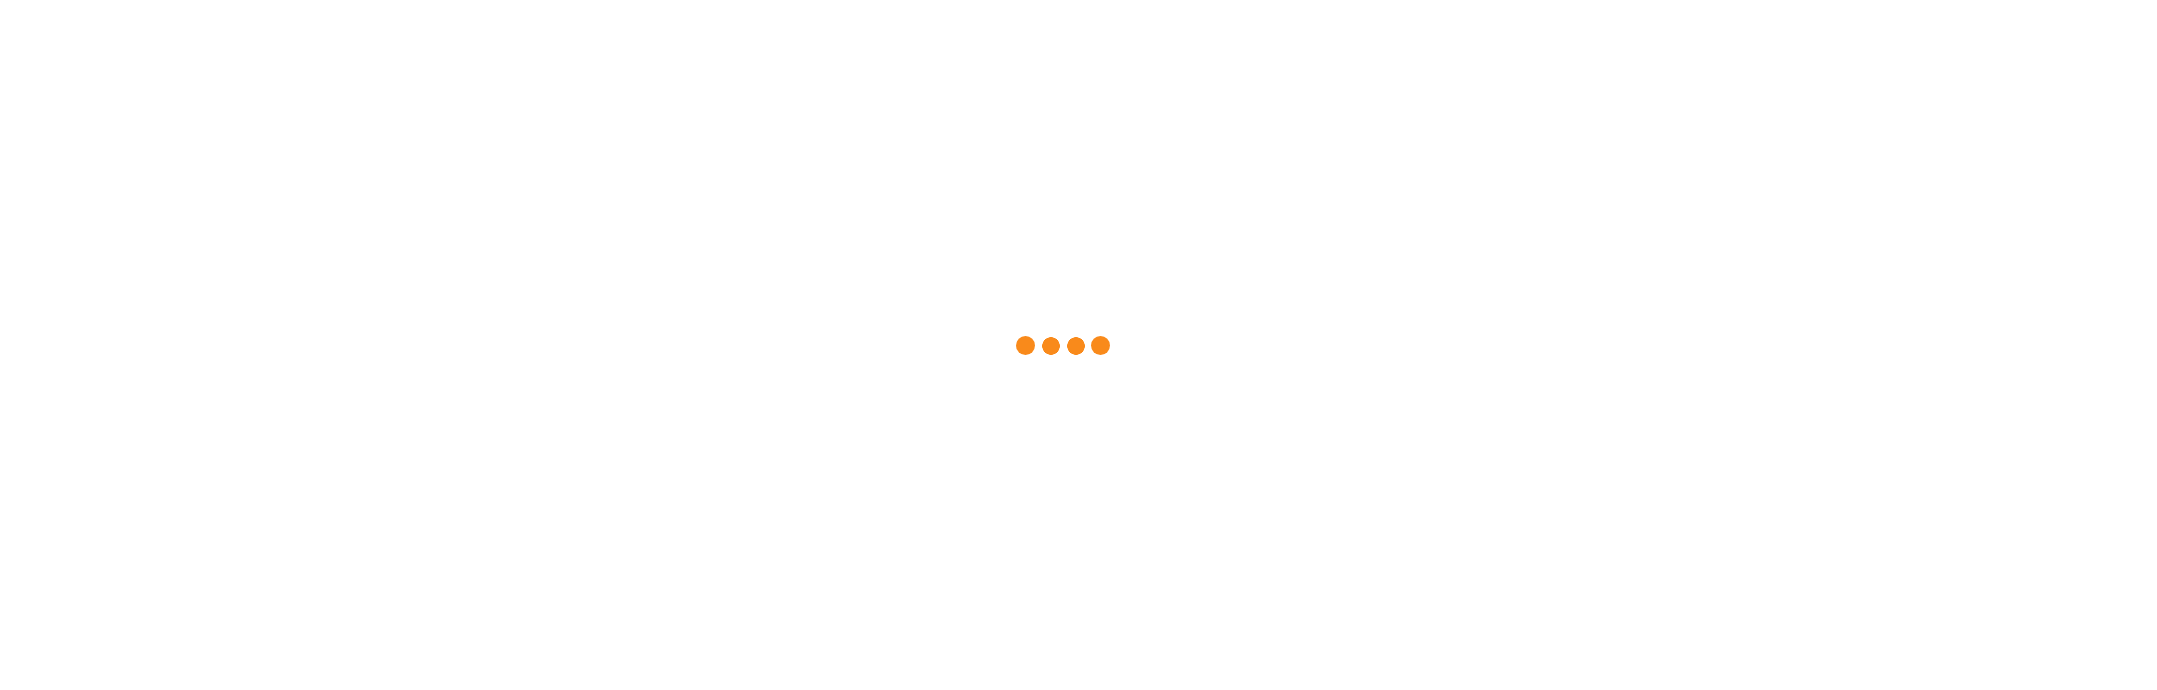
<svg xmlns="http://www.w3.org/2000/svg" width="2157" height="690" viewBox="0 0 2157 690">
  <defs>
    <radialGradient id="g1" gradientUnits="userSpaceOnUse" cx="1076" cy="346" r="9"><stop offset="0.95" stop-color="#f98a1b"/><stop offset="1" stop-color="#fff"/></radialGradient>
    <radialGradient id="g2" gradientUnits="userSpaceOnUse" cx="1051" cy="346" r="9"><stop offset="0.95" stop-color="#f98a1b"/><stop offset="1" stop-color="#fff"/></radialGradient>
  </defs>
  <rect width="100%" height="100%" fill="#fff"/>
  <rect x="1067" y="337" width="18" height="18" fill="url(#g1)"/>
  <rect x="1042" y="337" width="18" height="18" fill="url(#g2)"/>
  <circle cx="1025.5" cy="345.5" r="9.5" fill="#f98a1b"/>
  <circle cx="1100.5" cy="345.5" r="9.5" fill="#f98a1b"/>
</svg>
